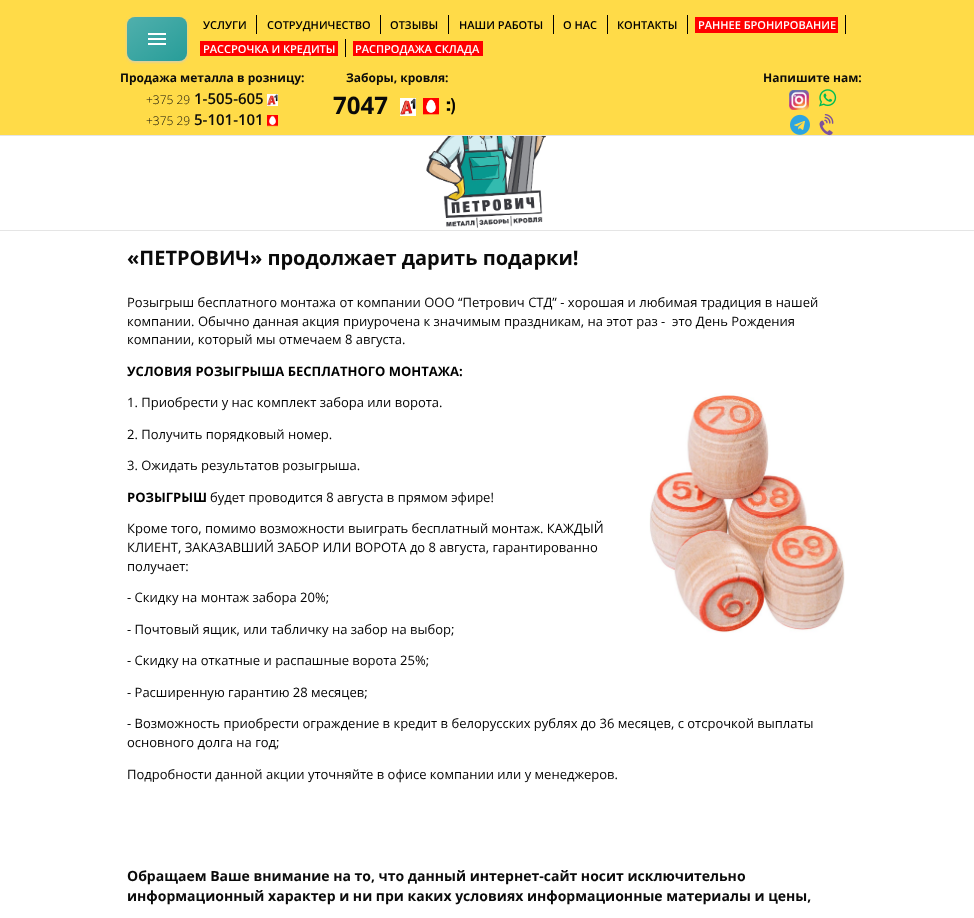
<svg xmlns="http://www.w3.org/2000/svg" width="974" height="918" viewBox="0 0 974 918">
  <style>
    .t1 { font: 600 11px Open Sans; fill: #000; }
    .t2 { font: 600 11px Open Sans; fill: #fff; }
    .t3 { font: bold 12px Open Sans; fill: #0a0a0a; }
    .t4 { font: 300 12px Open Sans; fill: #0a0a0a; }
    .t5 { font: 600 15px Open Sans; fill: #0a0a0a; }
    .t6 { font: bold 24px Open Sans; fill: #0a0a0a; }
    .t7 { font: bold 20px Open Sans; fill: #0a0a0a; }
    .t8 { font: 13px Open Sans; fill: #000; }
    .t9 { font: bold 13px Open Sans; fill: #000; }
    .t10 { font: bold 14px Open Sans; fill: #0a0a0a; }
  </style>
  <defs>
    <linearGradient id="g1" gradientUnits="userSpaceOnUse" x1="136" y1="10" x2="178" y2="68"><stop offset="0" stop-color="#fff" stop-opacity="0.2"/><stop offset="1" stop-color="#fff" stop-opacity="0.01"/></linearGradient>
  </defs>
  <rect width="100%" height="100%" fill="#fff"/>
  <rect x="0" y="0" width="974" height="135" fill="#ffdb48"/>
  <rect x="0" y="135" width="974" height="1" fill="#e5e5e5"/>
  <rect x="127" y="18" width="60" height="44" rx="8" fill="#cbcbcb" filter="blur(1.5px)"/>
  <rect x="127" y="17" width="60" height="44" rx="8" fill="#259c98"/>
  <rect x="127" y="17" width="60" height="44" rx="8" fill="url(#g1)"/>
  <rect x="148" y="33" width="18" height="2" fill="#fff"/>
  <rect x="148" y="38" width="18" height="2" fill="#fff"/>
  <rect x="148" y="43" width="18" height="2" fill="#fff"/>
  <rect x="256" y="15" width="1" height="19" fill="#000"/>
  <text x="203" y="29" class="t1">УСЛУГИ</text>
  <rect x="380" y="15" width="1" height="19" fill="#000"/>
  <text x="267" y="29" class="t1">СОТРУДНИЧЕСТВО</text>
  <rect x="448" y="15" width="1" height="19" fill="#000"/>
  <text x="390" y="29" class="t1">ОТЗЫВЫ</text>
  <rect x="553" y="15" width="1" height="19" fill="#000"/>
  <text x="459" y="29" class="t1">НАШИ РАБОТЫ</text>
  <rect x="607" y="15" width="1" height="19" fill="#000"/>
  <text x="563" y="29" class="t1">О НАС</text>
  <rect x="687" y="15" width="1" height="19" fill="#000"/>
  <text x="617" y="29" class="t1">КОНТАКТЫ</text>
  <rect x="845" y="15" width="1" height="19" fill="#000"/>
  <rect x="695" y="17" width="143" height="16" fill="#f00"/>
  <text x="698" y="29" class="t2">РАННЕЕ БРОНИРОВАНИЕ</text>
  <rect x="345" y="39" width="1" height="18" fill="#000"/>
  <rect x="200" y="41" width="138" height="15" fill="#f00"/>
  <text x="203" y="53" class="t2">РАССРОЧКА И КРЕДИТЫ</text>
  <rect x="353" y="41" width="130" height="15" fill="#f00"/>
  <text x="355" y="53" class="t2">РАСПРОДАЖА СКЛАДА</text>
  <text x="120" y="82" class="t3">Продажа металла в розницу:</text>
  <text x="146" y="104" class="t4">+375 29</text>
  <text x="194" y="104" class="t5">1-505-605</text>
  <image x="267" y="94" width="11" height="12" href="images/1.png"/>
  <text x="146" y="125" class="t4">+375 29</text>
  <text x="194" y="125" class="t5">5-101-101</text>
  <image x="267" y="115" width="11" height="12" href="images/2.png"/>
  <text x="346" y="82" class="t3">Заборы, кровля:</text>
  <text x="333" y="114" class="t6">7047</text>
  <image x="400" y="98" width="16" height="18" href="images/3.png"/>
  <image x="423" y="98" width="16" height="17" href="images/4.png"/>
  <image x="446" y="98" width="9" height="17" href="images/5.png"/>
  <text x="763" y="82" class="t3">Напишите нам:</text>
  <image x="789" y="90" width="20" height="20" href="images/6.png"/>
  <image x="819" y="89" width="18" height="18" href="images/7.png"/>
  <image x="790" y="114" width="20" height="21" href="images/8.png"/>
  <image x="819" y="114" width="15" height="22" href="images/9.png"/>
  <rect x="0" y="230" width="974" height="1" fill="#e5e5e5"/>
  <image x="426" y="136" width="120" height="92" href="images/10.png"/>
  <text x="127" y="265" class="t7">«ПЕТРОВИЧ» продолжает дарить подарки!</text>
  <text x="127" y="307" class="t8">Розыгрыш бесплатного монтажа от компании ООО “Петрович СТД” - хорошая и любимая традиция в нашей</text>
  <text x="127" y="326" class="t8" xml:space="preserve">компании. Обычно данная акция приурочена к значимым праздникам, на этот раз -  это День Рождения</text>
  <text x="127" y="344" class="t8">компании, который мы отмечаем 8 августа.</text>
  <text x="127" y="376" class="t9">УСЛОВИЯ РОЗЫГРЫША БЕСПЛАТНОГО МОНТАЖА:</text>
  <text x="127" y="407" class="t8">1. Приобрести у нас комплект забора или ворота.</text>
  <image x="649" y="393" width="196" height="240" href="images/11.png"/>
  <text x="127" y="439" class="t8">2. Получить порядковый номер.</text>
  <text x="127" y="470" class="t8">3. Ожидать результатов розыгрыша.</text>
  <text x="127" y="502" class="t9">РОЗЫГРЫШ</text>
  <text x="210" y="502" class="t8">будет проводится 8 августа в прямом эфире!</text>
  <text x="127" y="533" class="t8">Кроме того, помимо возможности выиграть бесплатный монтаж. КАЖДЫЙ</text>
  <text x="127" y="552" class="t8">КЛИЕНТ, ЗАКАЗАВШИЙ ЗАБОР ИЛИ ВОРОТА до 8 августа, гарантированно</text>
  <text x="127" y="571" class="t8">получает:</text>
  <text x="127" y="602" class="t8">- Скидку на монтаж забора 20%;</text>
  <text x="127" y="634" class="t8">- Почтовый ящик, или табличку на забор на выбор;</text>
  <text x="127" y="665" class="t8">- Скидку на откатные и распашные ворота 25%;</text>
  <text x="127" y="697" class="t8">- Расширенную гарантию 28 месяцев;</text>
  <text x="127" y="728" class="t8">- Возможность приобрести ограждение в кредит в белорусских рублях до 36 месяцев, с отсрочкой выплаты</text>
  <text x="127" y="747" class="t8">основного долга на год;</text>
  <text x="127" y="779" class="t8">Подробности данной акции уточняйте в офисе компании или у менеджеров.</text>
  <text x="127" y="881" class="t10">Обращаем Ваше внимание на то, что данный интернет-сайт носит исключительно</text>
  <text x="127" y="901" class="t10">информационный характер и ни при каких условиях информационные материалы и цены,</text>
</svg>
